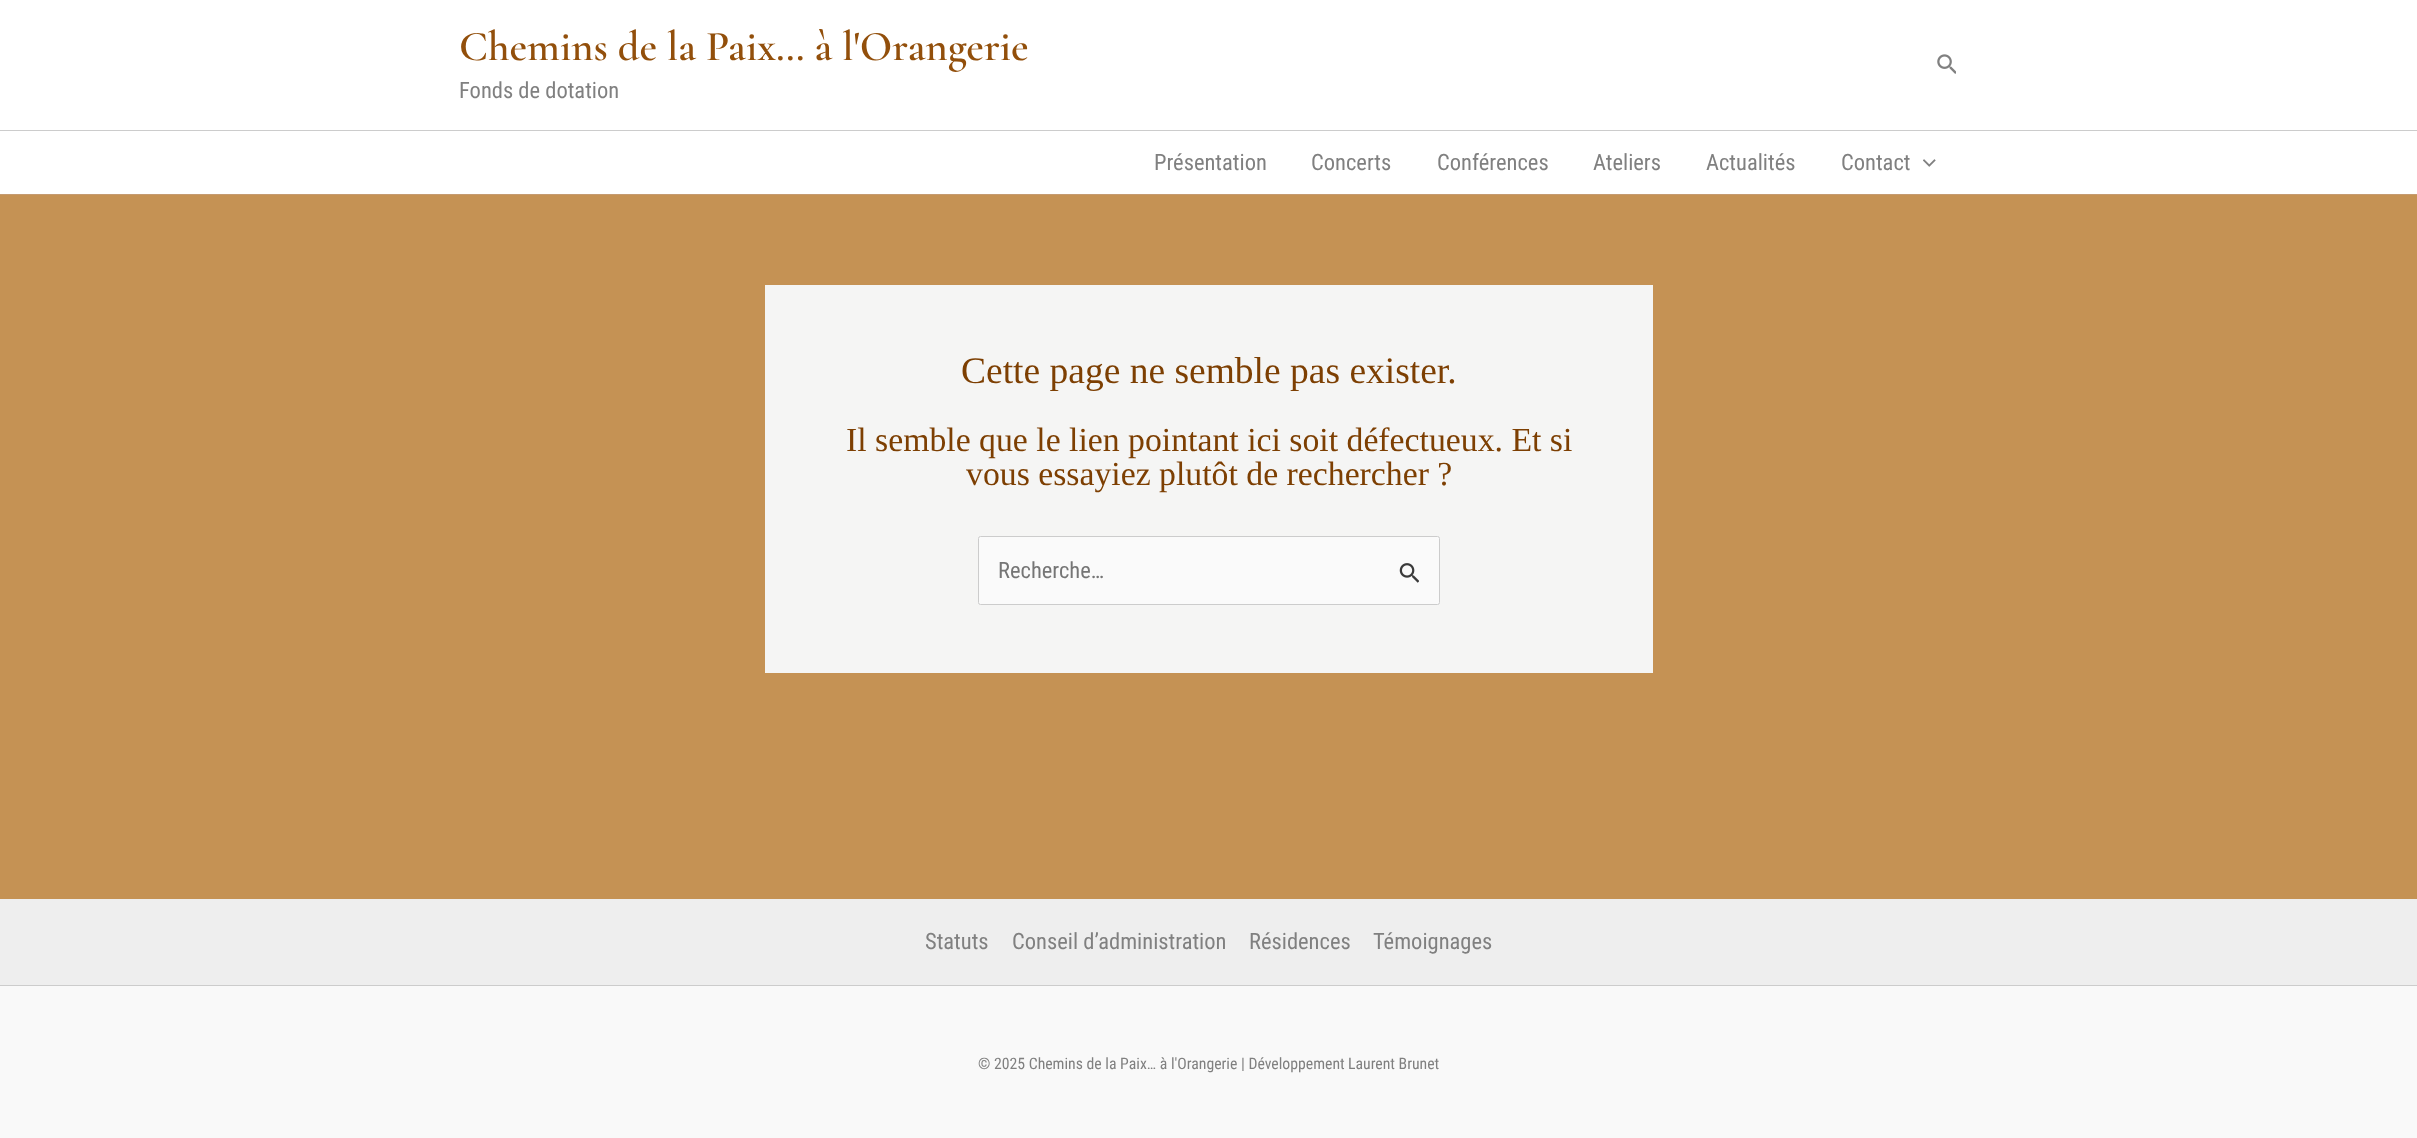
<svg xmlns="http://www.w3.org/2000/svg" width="2417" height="1138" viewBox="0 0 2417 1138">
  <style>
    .t1 { font: 600 42.5px Cormorant Garamond; fill: #924f0b; }
    .t2 { font: 22.5px Roboto Condensed; fill: #808080; }
    .t3 { font: 37.5px Liberation Serif; fill: #7d3f02; }
    .t4 { font: 33.75px Liberation Serif; fill: #7d3f02; }
    .t5 { font: 22.5px Roboto Condensed; fill: #757575; }
    .t6 { font: 15.75px Roboto Condensed; fill: #808080; }
  </style>
  <rect width="100%" height="100%" fill="#c59254"/>
  <rect x="0" y="0" width="2417" height="130" fill="#fff"/>
  <rect x="0" y="130" width="2417" height="1" fill="#ccc"/>
  <text x="459" y="60" class="t1">Chemins de la Paix… à l'Orangerie</text>
  <text x="459" y="98" class="t2">Fonds de dotation</text>
  <image x="1937" y="54" width="19" height="20" href="images/1.png"/>
  <rect x="0" y="131" width="2417" height="63" fill="#fff"/>
  <rect x="0" y="194" width="2417" height="1" fill="#c59b71"/>
  <text x="1154" y="170" class="t2">Présentation</text>
  <text x="1311" y="170" class="t2">Concerts</text>
  <text x="1437" y="170" class="t2">Conférences</text>
  <text x="1593" y="170" class="t2">Ateliers</text>
  <text x="1706" y="170" class="t2">Actualités</text>
  <text x="1841" y="170" class="t2">Contact</text>
  <image x="1923" y="159" width="13" height="8" href="images/2.png"/>
  <rect x="765" y="285" width="888" height="388" fill="#f5f5f4"/>
  <text x="961" y="383" class="t3">Cette page ne semble pas exister.</text>
  <text x="846" y="451" class="t4">Il semble que le lien pointant ici soit défectueux. Et si</text>
  <text x="966" y="485" class="t4">vous essayiez plutôt de rechercher ?</text>
  <rect x="978.5" y="536.5" width="461" height="68" rx="2" fill="#fafafa" stroke="#ccc"/>
  <text x="998" y="578" class="t5">Recherche…</text>
  <image x="1399" y="563" width="20" height="20" href="images/3.png"/>
  <rect x="0" y="899" width="2417" height="86" fill="#eee"/>
  <text x="925" y="949" class="t2">Statuts</text>
  <text x="1012" y="949" class="t2">Conseil d’administration</text>
  <text x="1249" y="949" class="t2">Résidences</text>
  <text x="1373" y="949" class="t2">Témoignages</text>
  <rect x="0" y="986" width="2417" height="152" fill="#f9f9f9"/>
  <rect x="0" y="985" width="2417" height="1" fill="#ccc"/>
  <text x="978" y="1069" class="t6">© 2025 Chemins de la Paix… à l'Orangerie | Développement</text>
  <text x="1348" y="1069" class="t6">Laurent Brunet</text>
</svg>
